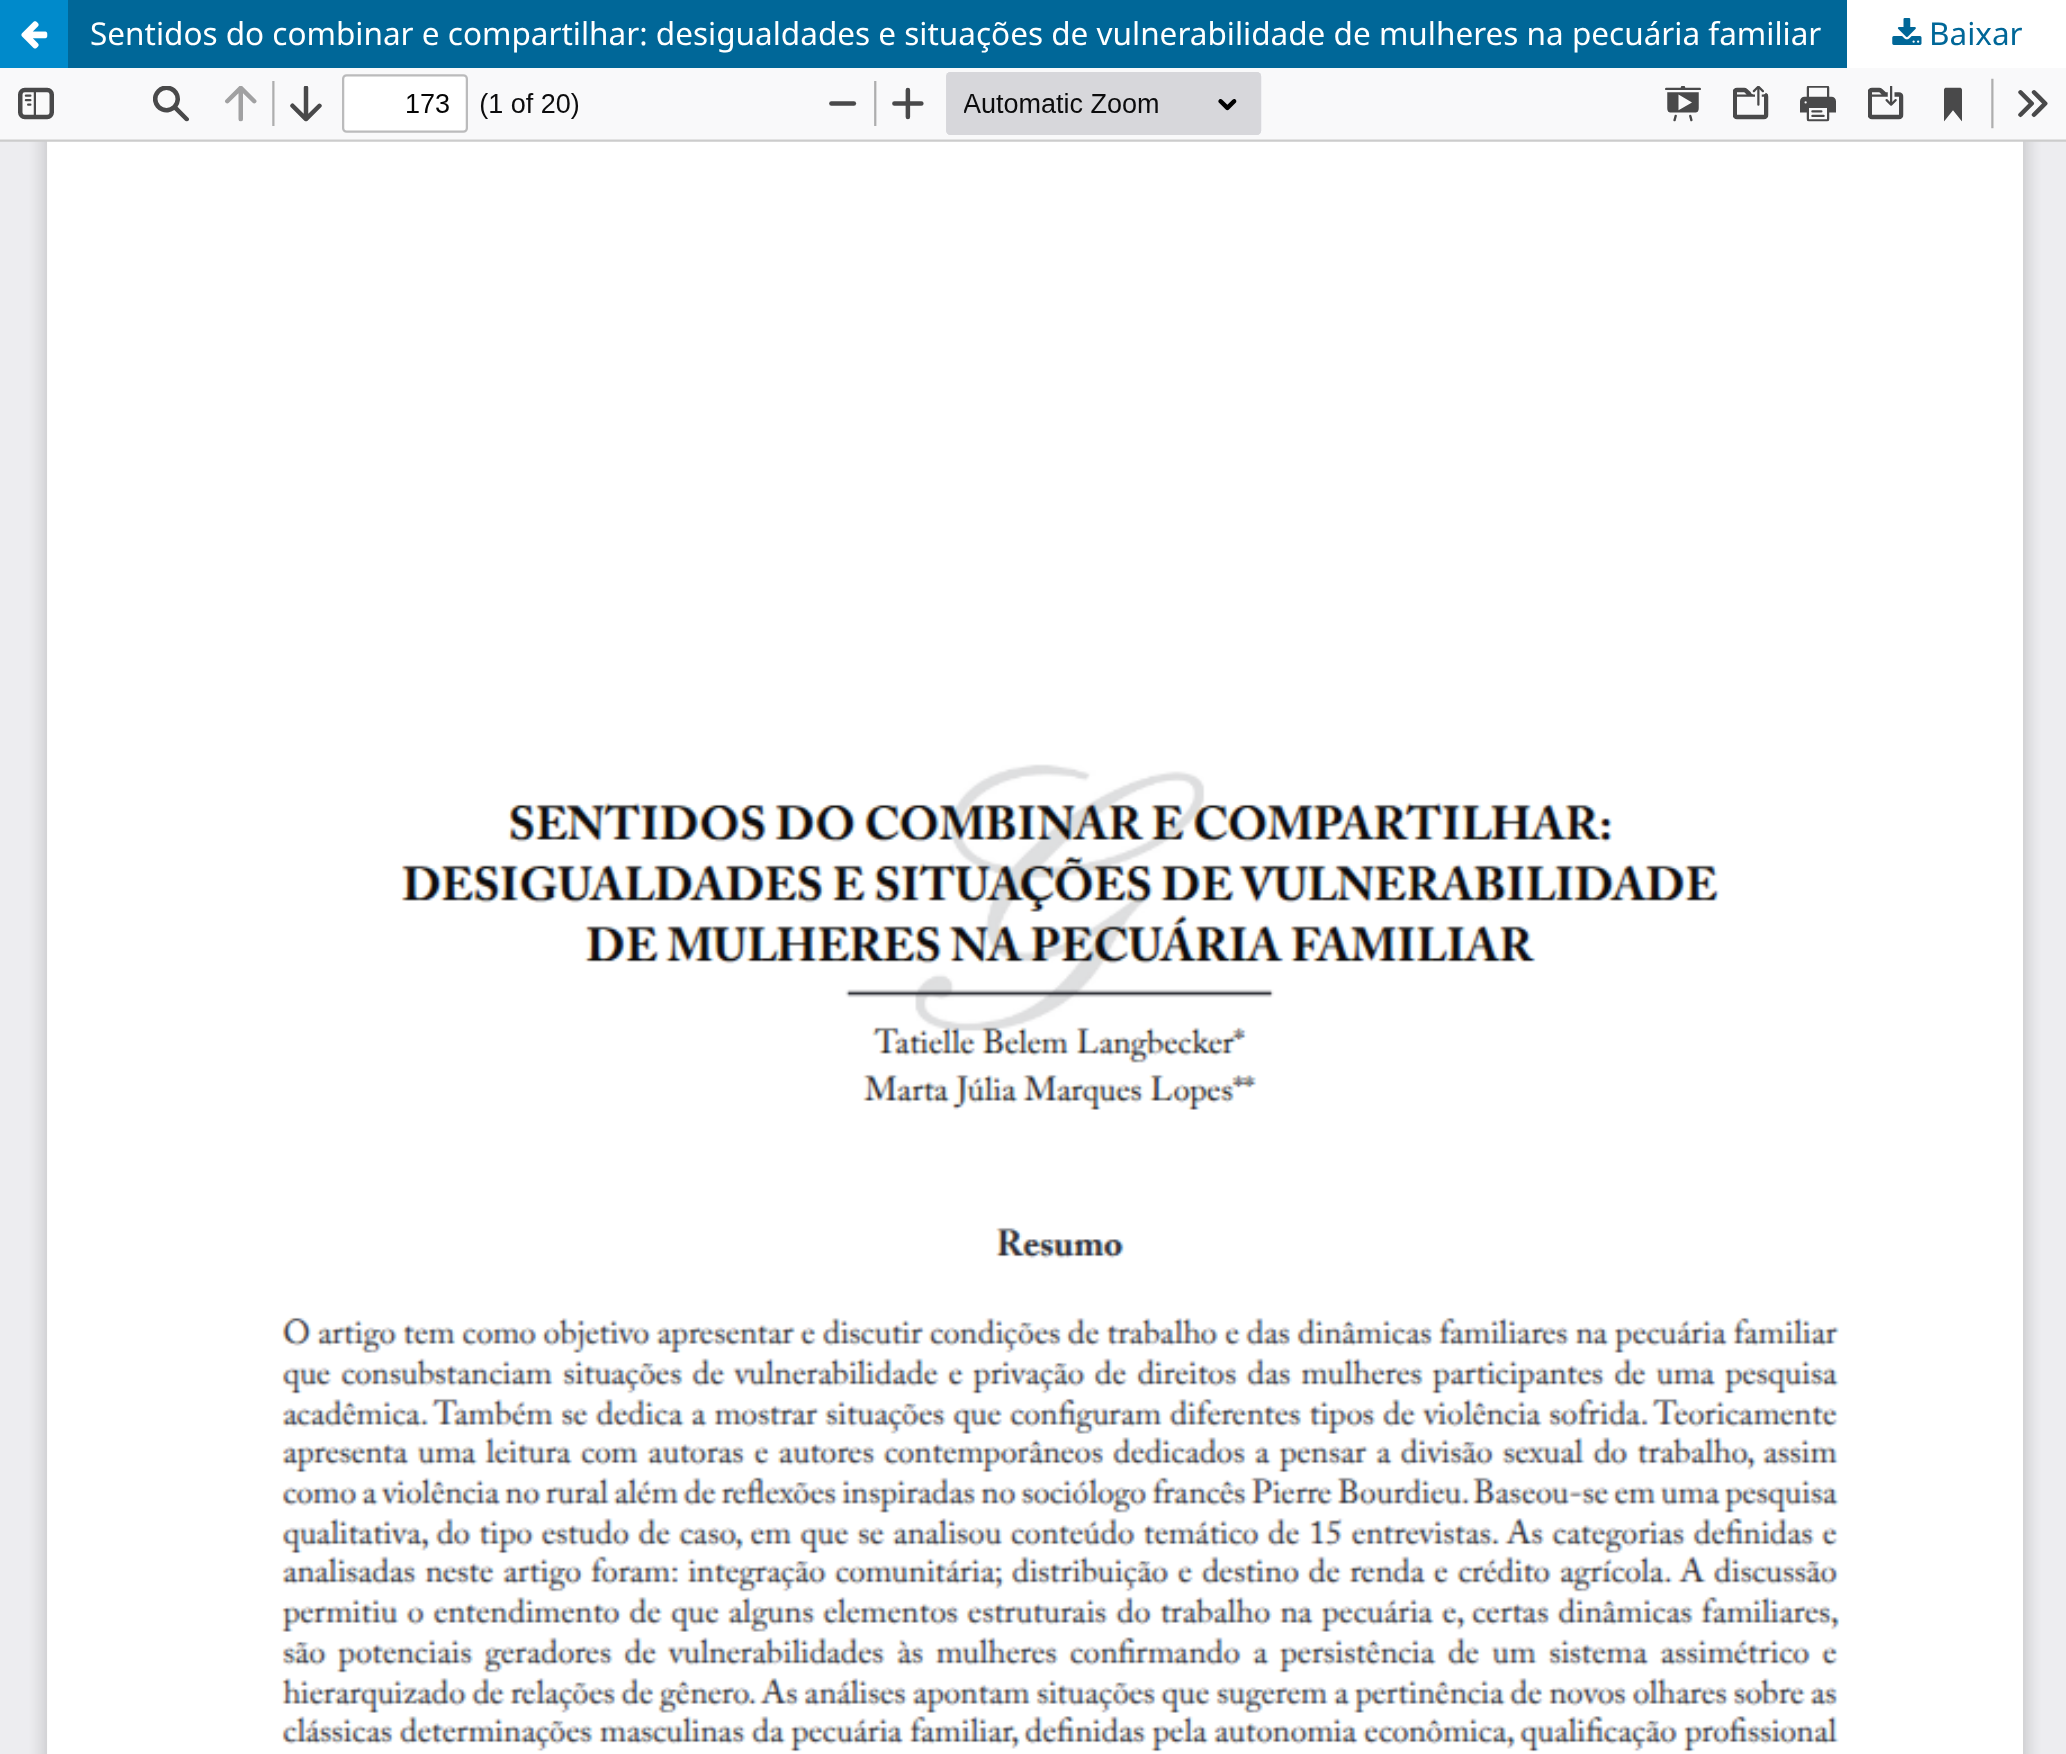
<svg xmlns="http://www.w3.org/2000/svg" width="2066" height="1754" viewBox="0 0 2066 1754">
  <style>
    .t1 { font: 31.5px Noto Sans; fill: #fff; }
    .t2 { font: 31.5px Noto Sans; fill: #006798; }
  </style>
  <rect width="100%" height="100%" fill="#fff"/>
  <rect x="68" y="0" width="1779" height="68" fill="#006798"/>
  <rect x="0" y="0" width="68" height="68" fill="#008acb"/>
  <image x="21" y="21" width="27" height="28" href="images/1.png"/>
  <text x="90" y="45" class="t1">Sentidos do combinar e compartilhar: desigualdades e situações de vulnerabilidade de mulheres na pecuária familiar</text>
  <image x="1892" y="18" width="30" height="27" href="images/2.png"/>
  <text x="1929" y="45" class="t2">Baixar</text>
  <image x="0" y="68" width="2066" height="1686" href="images/3.png"/>
</svg>
